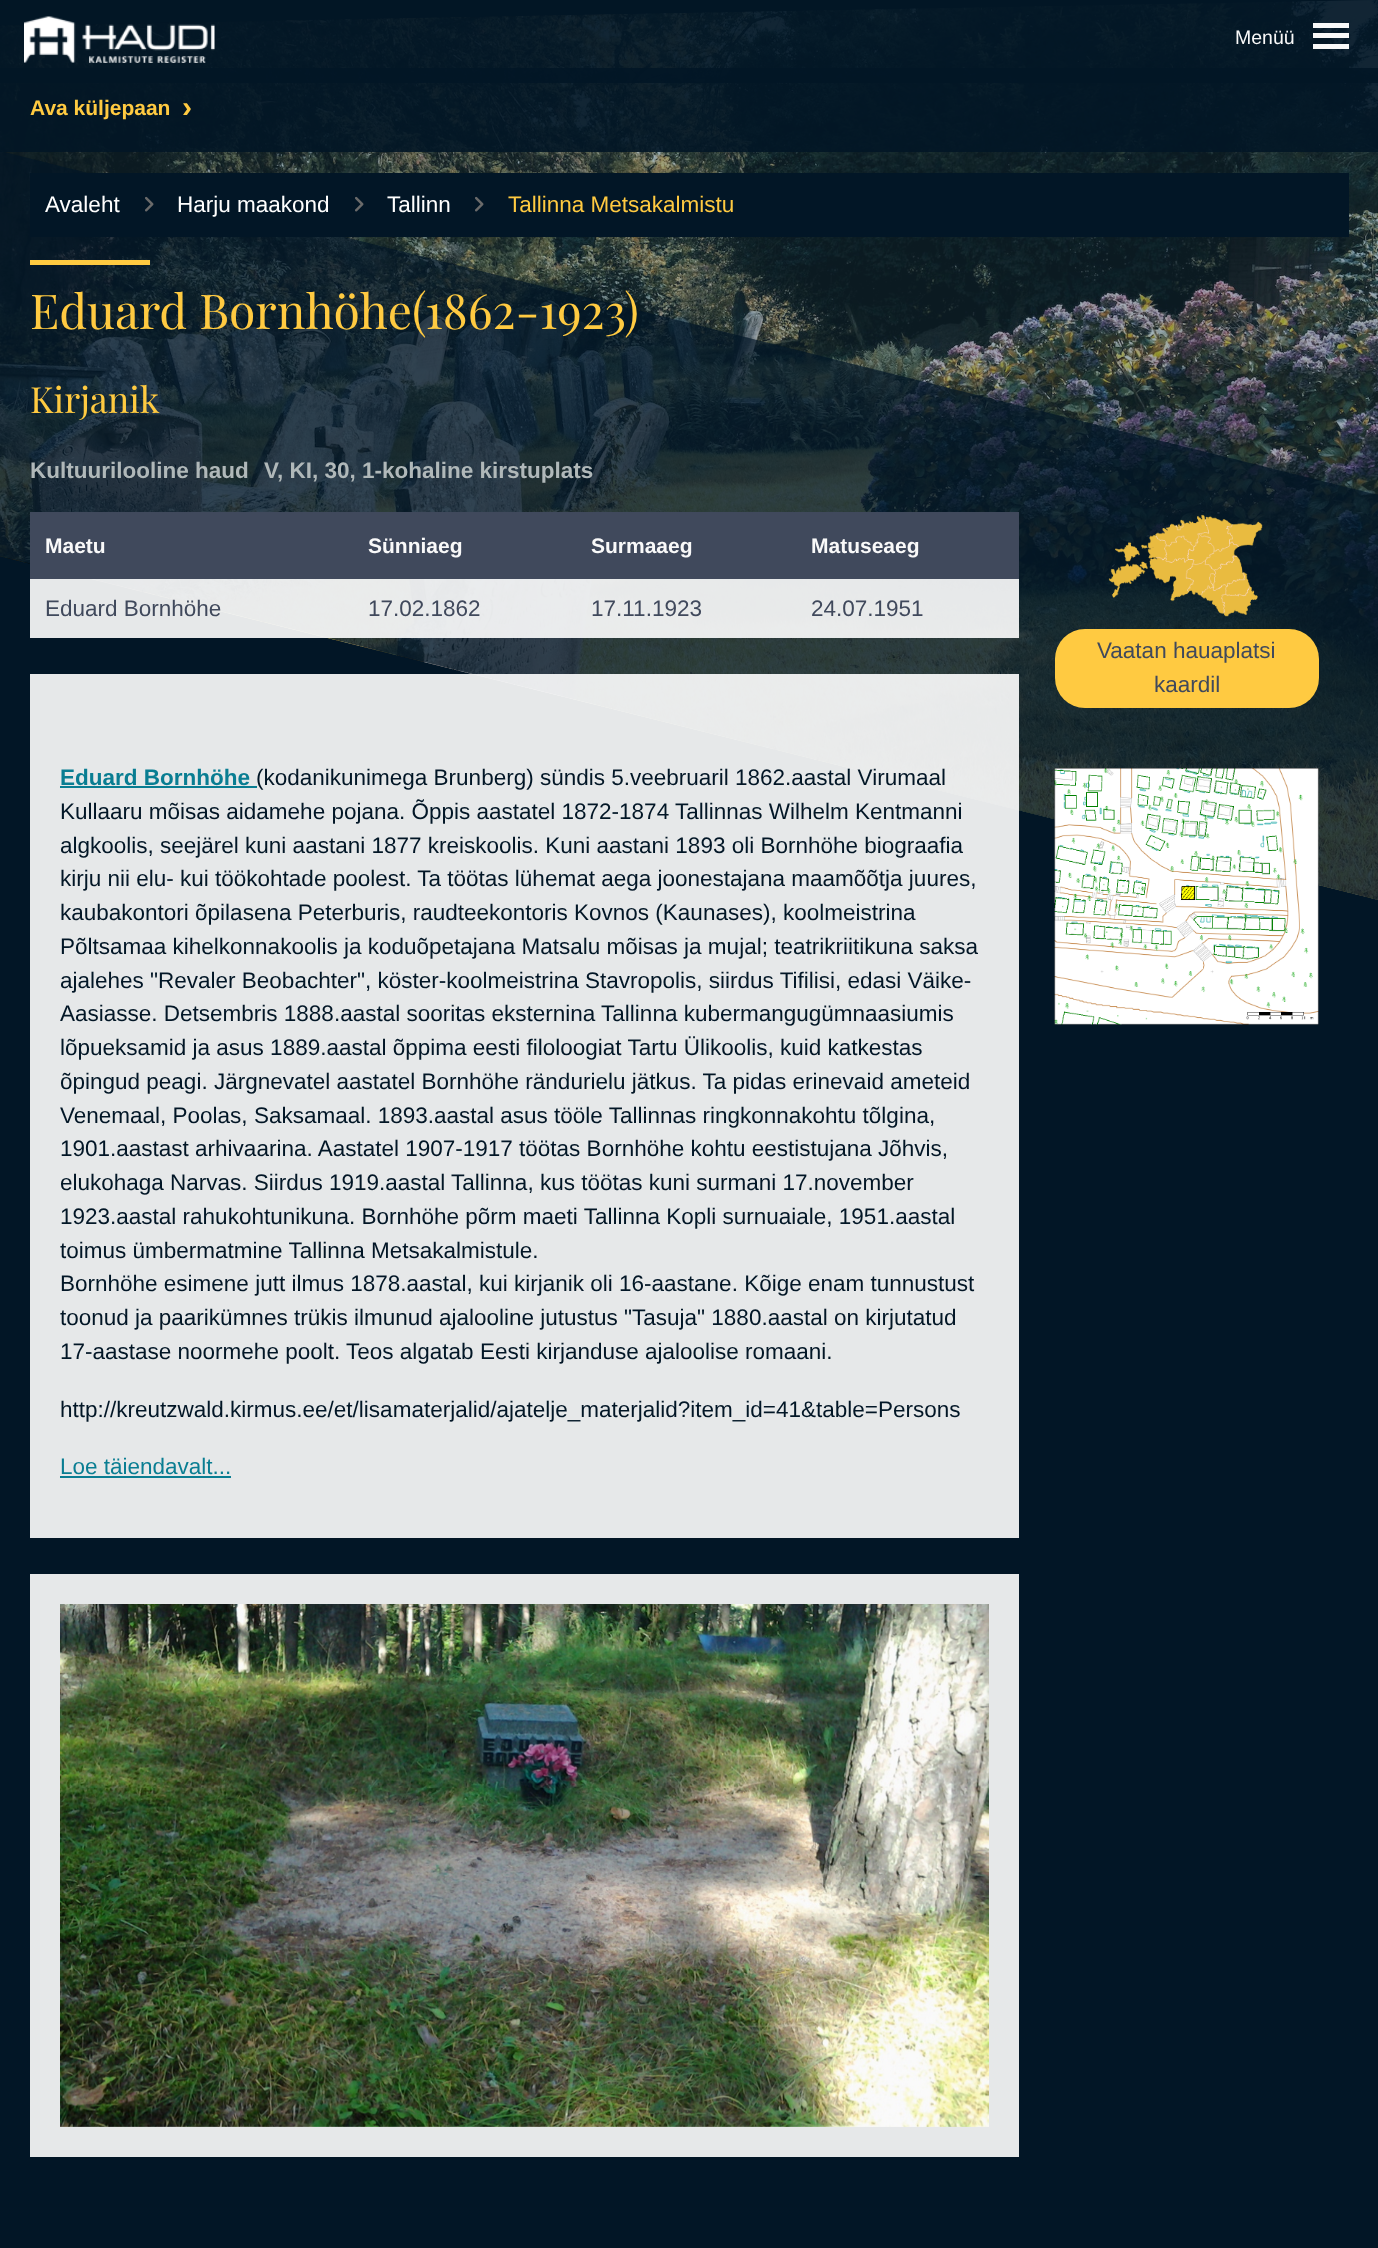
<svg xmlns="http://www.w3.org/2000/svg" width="1378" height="2248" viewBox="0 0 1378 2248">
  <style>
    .t1 { font: 19.5px Liberation Sans; fill: #f9f9f9; }
    .t2 { font: bold 21px Liberation Sans; fill: #ffca41; }
    .t3 { font: bold 30px Liberation Sans; fill: #ffca41; }
    .t4 { font: 22.5px Liberation Sans; fill: #fff; }
    .t5 { font: 22.5px Liberation Sans; fill: #ffca41; }
    .t6 { font: 48px Playfair Display; fill: #ffca41; }
    .t7 { font: 36px Playfair Display; fill: #ffca41; }
    .t8 { font: bold 22.5px Liberation Sans; fill: #b0b8b9; }
    .t9 { font: bold 21px Liberation Sans; fill: #f9f9f9; }
    .t10 { font: 22.5px Liberation Sans; fill: #40495c; }
    .t11 { font: bold 22.5px Liberation Sans; fill: #097d92; }
    .t12 { font: 22.5px Liberation Sans; fill: #021626; }
    .t13 { font: 22.5px Liberation Sans; fill: #097d92; }
  </style>
  <rect width="100%" height="100%" fill="#021626"/>
  <image x="0" y="0" width="1378" height="900" href="images/2.png"/>
  <path d="M0 26V556L1378 900V0Z" fill="#1b415266"/>
  <path d="M0 151V556L1378 900V495Z" fill="#021626b3"/>
  <rect x="0" y="68" width="1378" height="84" fill="#021626e6"/>
  <rect x="0" y="0" width="1378" height="83" fill="#021626e6"/>
  <image x="24" y="16" width="191" height="47" href="images/1.png"/>
  <text x="1235" y="44" class="t1">Menüü</text>
  <rect x="1313" y="33" width="36" height="5" fill="#f9f9f9"/>
  <rect x="1313" y="23" width="36" height="5" fill="#f9f9f9"/>
  <rect x="1313" y="44" width="36" height="5" fill="#f9f9f9"/>
  <text x="30" y="115" class="t2">Ava küljepaan</text>
  <text x="182" y="117" class="t3">›</text>
  <rect x="30" y="173" width="1319" height="64" fill="#021626"/>
  <text x="45" y="212" class="t4">Avaleht</text>
  <image x="145" y="196" width="9" height="16" href="images/3.png"/>
  <text x="177" y="212" class="t4">Harju maakond</text>
  <image x="355" y="196" width="9" height="16" href="images/3.png"/>
  <text x="387" y="212" class="t4">Tallinn</text>
  <image x="475" y="196" width="9" height="16" href="images/3.png"/>
  <text x="508" y="212" class="t5">Tallinna Metsakalmistu</text>
  <rect x="30" y="260" width="120" height="5" fill="#ffca41"/>
  <text x="30" y="329" class="t6">Eduard Bornhöhe(1862-1923)</text>
  <text x="30" y="413" class="t7">Kirjanik</text>
  <text x="30" y="478" class="t8">Kultuurilooline haud</text>
  <text x="264" y="478" class="t8">V, KI, 30, 1-kohaline kirstuplats</text>
  <rect x="30" y="512" width="989" height="67" fill="#40495c"/>
  <text x="45" y="553" class="t9">Maetu</text>
  <text x="368" y="553" class="t9">Sünniaeg</text>
  <text x="591" y="553" class="t9">Surmaaeg</text>
  <text x="811" y="553" class="t9">Matuseaeg</text>
  <rect x="30" y="579" width="323" height="59" fill="#ffffffe6"/>
  <text x="45" y="616" class="t10">Eduard Bornhöhe</text>
  <rect x="353" y="579" width="223" height="59" fill="#ffffffe6"/>
  <text x="368" y="616" class="t10">17.02.1862</text>
  <rect x="576" y="579" width="221" height="59" fill="#ffffffe6"/>
  <text x="591" y="616" class="t10">17.11.1923</text>
  <rect x="797" y="579" width="222" height="59" fill="#ffffffe6"/>
  <text x="811" y="616" class="t10">24.07.1951</text>
  <rect x="30" y="674" width="989" height="864" fill="#ffffffe6"/>
  <text x="60" y="785" class="t11">Eduard Bornhöhe</text>
  <rect x="60" y="786" width="197" height="2" fill="#097d92"/>
  <text x="256" y="785" class="t12">(kodanikunimega Brunberg) sündis 5.veebruaril 1862.aastal Virumaal</text>
  <text x="60" y="819" class="t12">Kullaaru mõisas aidamehe pojana. Õppis aastatel 1872-1874 Tallinnas Wilhelm Kentmanni</text>
  <text x="60" y="853" class="t12">algkoolis, seejärel kuni aastani 1877 kreiskoolis. Kuni aastani 1893 oli Bornhöhe biograafia</text>
  <text x="60" y="886" class="t12">kirju nii elu- kui töökohtade poolest. Ta töötas lühemat aega joonestajana maamõõtja juures,</text>
  <text x="60" y="920" class="t12">kaubakontori õpilasena Peterburis, raudteekontoris Kovnos (Kaunases), koolmeistrina</text>
  <text x="60" y="954" class="t12">Põltsamaa kihelkonnakoolis ja koduõpetajana Matsalu mõisas ja mujal; teatrikriitikuna saksa</text>
  <text x="60" y="988" class="t12">ajalehes "Revaler Beobachter", köster-koolmeistrina Stavropolis, siirdus Tifilisi, edasi Väike-</text>
  <text x="60" y="1021" class="t12">Aasiasse. Detsembris 1888.aastal sooritas eksternina Tallinna kubermangugümnaasiumis</text>
  <text x="60" y="1055" class="t12">lõpueksamid ja asus 1889.aastal õppima eesti filoloogiat Tartu Ülikoolis, kuid katkestas</text>
  <text x="60" y="1089" class="t12">õpingud peagi. Järgnevatel aastatel Bornhöhe rändurielu jätkus. Ta pidas erinevaid ameteid</text>
  <text x="60" y="1123" class="t12">Venemaal, Poolas, Saksamaal. 1893.aastal asus tööle Tallinnas ringkonnakohtu tõlgina,</text>
  <text x="60" y="1156" class="t12">1901.aastast arhivaarina. Aastatel 1907-1917 töötas Bornhöhe kohtu eestistujana Jõhvis,</text>
  <text x="60" y="1190" class="t12">elukohaga Narvas. Siirdus 1919.aastal Tallinna, kus töötas kuni surmani 17.november</text>
  <text x="60" y="1224" class="t12">1923.aastal rahukohtunikuna. Bornhöhe põrm maeti Tallinna Kopli surnuaiale, 1951.aastal</text>
  <text x="60" y="1258" class="t12">toimus ümbermatmine Tallinna Metsakalmistule.</text>
  <text x="60" y="1291" class="t12">Bornhöhe esimene jutt ilmus 1878.aastal, kui kirjanik oli 16-aastane. Kõige enam tunnustust</text>
  <text x="60" y="1325" class="t12">toonud ja paarikümnes trükis ilmunud ajalooline jutustus "Tasuja" 1880.aastal on kirjutatud</text>
  <text x="60" y="1359" class="t12">17-aastase noormehe poolt. Teos algatab Eesti kirjanduse ajaloolise romaani.</text>
  <text x="60" y="1417" class="t12">http://kreutzwald.kirmus.ee/et/lisamaterjalid/ajatelje_materjalid?item_id=41&amp;table=Persons</text>
  <text x="60" y="1474" class="t13">Loe täiendavalt...</text>
  <rect x="60" y="1476" width="171" height="2" fill="#097d92"/>
  <rect x="30" y="1574" width="989" height="583" fill="#e6e8e9"/>
  <image x="60" y="1604" width="929" height="523" href="images/4.png"/>
  <image x="1108" y="514" width="155" height="103" href="images/5.png"/>
  <rect x="1055" y="629" width="264" height="79" rx="30" fill="#ffca41"/>
  <text x="1097" y="658" class="t10">Vaatan hauaplatsi</text>
  <text x="1154" y="692" class="t10">kaardil</text>
  <image x="1054" y="768" width="265" height="257" href="images/6.png"/>
</svg>
